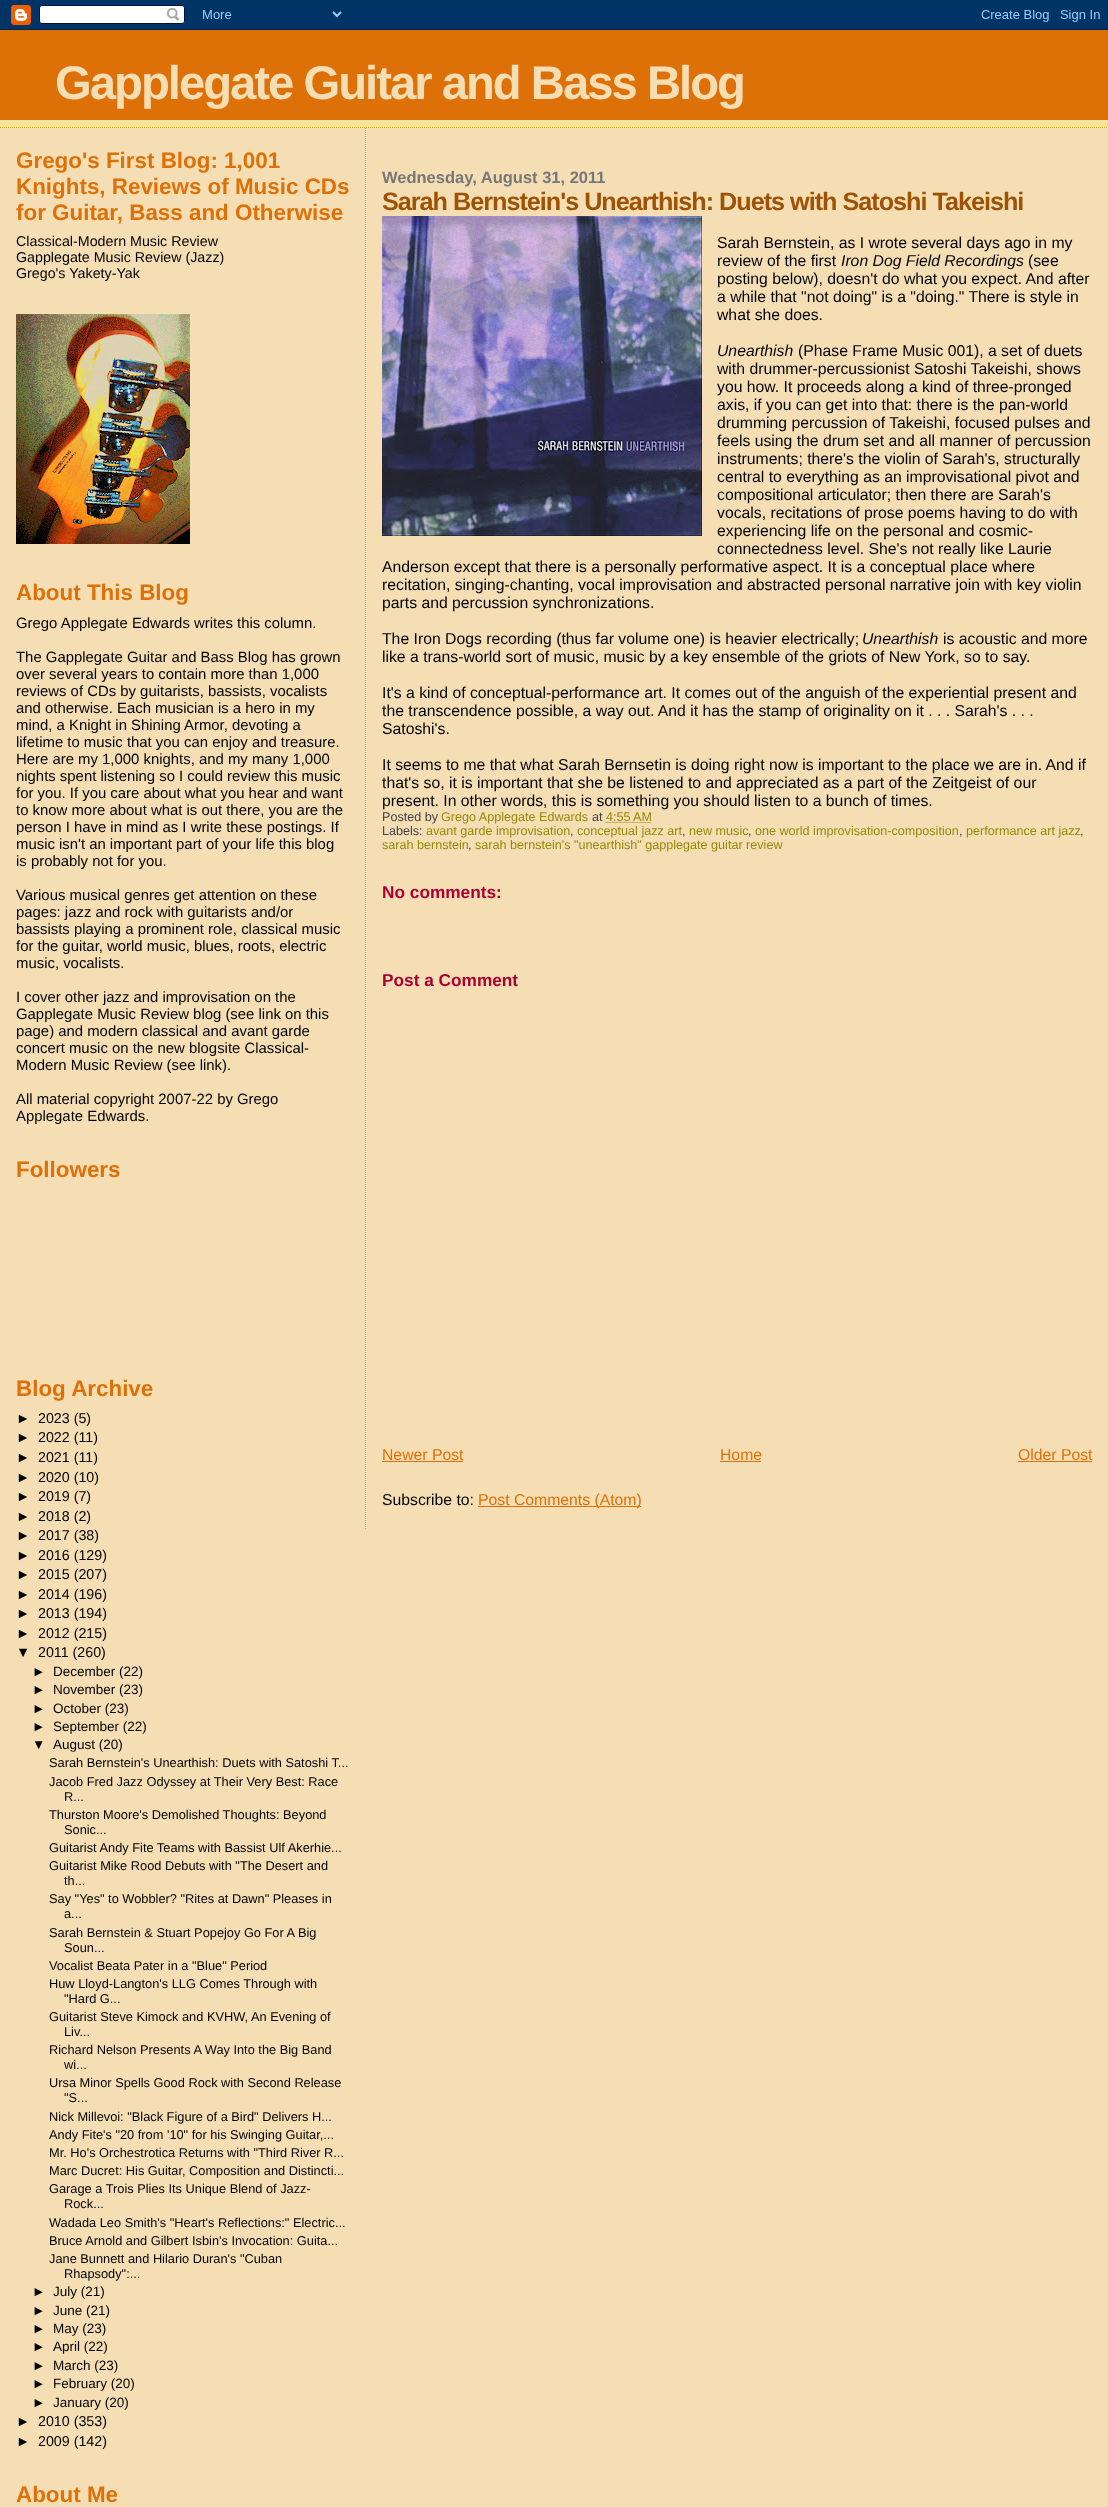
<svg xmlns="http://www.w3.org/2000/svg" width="1108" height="2507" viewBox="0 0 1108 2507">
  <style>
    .t1 { font: bold 47.25px Liberation Sans; letter-spacing: -2px; fill: #f5deb3; }
    .t2 { font: bold 22.4px Liberation Sans; fill: #de7008; }
    .t3 { font: 14.25px Liberation Sans; fill: #000; }
    .t4 { font: 14.9px Liberation Sans; fill: #000; }
    .t5 { font: 13.5px Liberation Sans; fill: #000; }
    .t6 { font: 12.8px Liberation Sans; fill: #000; }
    .t7 { font: bold 16.5px Liberation Sans; fill: #777; }
    .t8 { font: bold 25.2px Liberation Sans; letter-spacing: -1px; fill: #9e5205; }
    .t9 { font: 15.75px Liberation Sans; fill: #000; }
    .t10 { font: italic 15.75px Liberation Sans; fill: #000; }
    .t11 { font: 12.6px Liberation Sans; fill: #444; }
    .t12 { font: 12.6px Liberation Sans; fill: #968a0a; }
    .t13 { font: bold 17.25px Liberation Sans; fill: #a03; }
    .t14 { font: 15.75px Liberation Sans; fill: #de7008; }
  </style>
  <rect width="100%" height="100%" fill="#f5deb3"/>
  <image x="0" y="0" width="1108" height="30" href="images/1.png"/>
  <rect x="0" y="120" width="1108" height="8" fill="#f5e39e"/>
  <path d="M0 127.5H1108" fill="none" stroke="#e0ad12" stroke-dasharray="1 1"/>
  <rect x="0" y="30" width="1108" height="90" fill="#de7008"/>
  <text x="55" y="99" class="t1">Gapplegate Guitar and Bass Blog</text>
  <text x="16" y="168" class="t2">Grego's First Blog: 1,001</text>
  <text x="16" y="194" class="t2">Knights, Reviews of Music CDs</text>
  <text x="16" y="220" class="t2">for Guitar, Bass and Otherwise</text>
  <text x="16" y="246" class="t3">Classical-Modern Music Review</text>
  <text x="16" y="262" class="t3">Gapplegate Music Review (Jazz)</text>
  <text x="16" y="278" class="t3">Grego's Yakety-Yak</text>
  <image x="16" y="314" width="174" height="230" href="images/2.png"/>
  <text x="16" y="600" class="t2">About This Blog</text>
  <text x="16" y="628" class="t4">Grego Applegate Edwards writes this column.</text>
  <text x="16" y="662" class="t4">The Gapplegate Guitar and Bass Blog has grown</text>
  <text x="16" y="679" class="t4">over several years to contain more than 1,000</text>
  <text x="16" y="696" class="t4">reviews of CDs by guitarists, bassists, vocalists</text>
  <text x="16" y="713" class="t4">and otherwise. Each musician is a hero in my</text>
  <text x="16" y="730" class="t4">mind, a Knight in Shining Armor, devoting a</text>
  <text x="16" y="747" class="t4">lifetime to music that you can enjoy and treasure.</text>
  <text x="16" y="764" class="t4">Here are my 1,000 knights, and my many 1,000</text>
  <text x="16" y="781" class="t4">nights spent listening so I could review this music</text>
  <text x="16" y="798" class="t4">for you. If you care about what you hear and want</text>
  <text x="16" y="815" class="t4">to know more about what is out there, you are the</text>
  <text x="16" y="832" class="t4">person I have in mind as I write these postings. If</text>
  <text x="16" y="849" class="t4">music isn't an important part of your life this blog</text>
  <text x="16" y="866" class="t4">is probably not for you.</text>
  <text x="16" y="900" class="t4">Various musical genres get attention on these</text>
  <text x="16" y="917" class="t4">pages: jazz and rock with guitarists and/or</text>
  <text x="16" y="934" class="t4">bassists playing a prominent role, classical music</text>
  <text x="16" y="951" class="t4">for the guitar, world music, blues, roots, electric</text>
  <text x="16" y="968" class="t4">music, vocalists.</text>
  <text x="16" y="1002" class="t4">I cover other jazz and improvisation on the</text>
  <text x="16" y="1019" class="t4">Gapplegate Music Review blog (see link on this</text>
  <text x="16" y="1036" class="t4">page) and modern classical and avant garde</text>
  <text x="16" y="1053" class="t4">concert music on the new blogsite Classical-</text>
  <text x="16" y="1070" class="t4">Modern Music Review (see link).</text>
  <text x="16" y="1104" class="t4">All material copyright 2007-22 by Grego</text>
  <text x="16" y="1121" class="t4">Applegate Edwards.</text>
  <text x="16" y="1177" class="t2">Followers</text>
  <text x="16" y="1396" class="t2">Blog Archive</text>
  <text x="16" y="1423" class="t3">►</text>
  <text x="38" y="1423" class="t3">2023 (5)</text>
  <text x="16" y="1442" class="t3">►</text>
  <text x="38" y="1442" class="t3">2022 (11)</text>
  <text x="16" y="1462" class="t3">►</text>
  <text x="38" y="1462" class="t3">2021 (11)</text>
  <text x="16" y="1482" class="t3">►</text>
  <text x="38" y="1482" class="t3">2020 (10)</text>
  <text x="16" y="1501" class="t3">►</text>
  <text x="38" y="1501" class="t3">2019 (7)</text>
  <text x="16" y="1521" class="t3">►</text>
  <text x="38" y="1521" class="t3">2018 (2)</text>
  <text x="16" y="1540" class="t3">►</text>
  <text x="38" y="1540" class="t3">2017 (38)</text>
  <text x="16" y="1560" class="t3">►</text>
  <text x="38" y="1560" class="t3">2016 (129)</text>
  <text x="16" y="1579" class="t3">►</text>
  <text x="38" y="1579" class="t3">2015 (207)</text>
  <text x="16" y="1599" class="t3">►</text>
  <text x="38" y="1599" class="t3">2014 (196)</text>
  <text x="16" y="1618" class="t3">►</text>
  <text x="38" y="1618" class="t3">2013 (194)</text>
  <text x="16" y="1638" class="t3">►</text>
  <text x="38" y="1638" class="t3">2012 (215)</text>
  <text x="16" y="1657" class="t3">▼</text>
  <text x="38" y="1657" class="t3">2011 (260)</text>
  <text x="32" y="1676" class="t5">►</text>
  <text x="53" y="1676" class="t5">December (22)</text>
  <text x="32" y="1694" class="t5">►</text>
  <text x="53" y="1694" class="t5">November (23)</text>
  <text x="32" y="1713" class="t5">►</text>
  <text x="53" y="1713" class="t5">October (23)</text>
  <text x="32" y="1731" class="t5">►</text>
  <text x="53" y="1731" class="t5">September (22)</text>
  <text x="32" y="1749" class="t5">▼</text>
  <text x="53" y="1749" class="t5">August (20)</text>
  <text x="49" y="1767" class="t6">Sarah Bernstein's Unearthish: Duets with Satoshi T...</text>
  <text x="49" y="1786" class="t6">Jacob Fred Jazz Odyssey at Their Very Best: Race</text>
  <text x="64" y="1801" class="t6">R...</text>
  <text x="49" y="1819" class="t6">Thurston Moore's Demolished Thoughts: Beyond</text>
  <text x="64" y="1834" class="t6">Sonic...</text>
  <text x="49" y="1852" class="t6">Guitarist Andy Fite Teams with Bassist Ulf Akerhie...</text>
  <text x="49" y="1870" class="t6">Guitarist Mike Rood Debuts with "The Desert and</text>
  <text x="64" y="1885" class="t6">th...</text>
  <text x="49" y="1903" class="t6">Say "Yes" to Wobbler? "Rites at Dawn" Pleases in</text>
  <text x="64" y="1918" class="t6">a...</text>
  <text x="49" y="1937" class="t6">Sarah Bernstein &amp; Stuart Popejoy Go For A Big</text>
  <text x="64" y="1952" class="t6">Soun...</text>
  <text x="49" y="1970" class="t6">Vocalist Beata Pater in a "Blue" Period</text>
  <text x="49" y="1988" class="t6">Huw Lloyd-Langton's LLG Comes Through with</text>
  <text x="64" y="2003" class="t6">"Hard G...</text>
  <text x="49" y="2021" class="t6">Guitarist Steve Kimock and KVHW, An Evening of</text>
  <text x="64" y="2036" class="t6">Liv...</text>
  <text x="49" y="2054" class="t6">Richard Nelson Presents A Way Into the Big Band</text>
  <text x="64" y="2069" class="t6">wi...</text>
  <text x="49" y="2087" class="t6">Ursa Minor Spells Good Rock with Second Release</text>
  <text x="64" y="2102" class="t6">"S...</text>
  <text x="49" y="2121" class="t6">Nick Millevoi: "Black Figure of a Bird" Delivers H...</text>
  <text x="49" y="2139" class="t6">Andy Fite's "20 from '10" for his Swinging Guitar,...</text>
  <text x="49" y="2157" class="t6">Mr. Ho's Orchestrotica Returns with "Third River R...</text>
  <text x="49" y="2175" class="t6">Marc Ducret: His Guitar, Composition and Distincti...</text>
  <text x="49" y="2193" class="t6">Garage a Trois Plies Its Unique Blend of Jazz-</text>
  <text x="64" y="2208" class="t6">Rock...</text>
  <text x="49" y="2227" class="t6">Wadada Leo Smith's "Heart's Reflections:" Electric...</text>
  <text x="49" y="2245" class="t6">Bruce Arnold and Gilbert Isbin's Invocation: Guita...</text>
  <text x="49" y="2263" class="t6">Jane Bunnett and Hilario Duran's "Cuban</text>
  <text x="64" y="2278" class="t6">Rhapsody":...</text>
  <text x="32" y="2296" class="t5">►</text>
  <text x="53" y="2296" class="t5">July (21)</text>
  <text x="32" y="2315" class="t5">►</text>
  <text x="53" y="2315" class="t5">June (21)</text>
  <text x="32" y="2333" class="t5">►</text>
  <text x="53" y="2333" class="t5">May (23)</text>
  <text x="32" y="2351" class="t5">►</text>
  <text x="53" y="2351" class="t5">April (22)</text>
  <text x="32" y="2370" class="t5">►</text>
  <text x="53" y="2370" class="t5">March (23)</text>
  <text x="32" y="2388" class="t5">►</text>
  <text x="53" y="2388" class="t5">February (20)</text>
  <text x="32" y="2407" class="t5">►</text>
  <text x="53" y="2407" class="t5">January (20)</text>
  <text x="16" y="2426" class="t3">►</text>
  <text x="38" y="2426" class="t3">2010 (353)</text>
  <text x="16" y="2446" class="t3">►</text>
  <text x="38" y="2446" class="t3">2009 (142)</text>
  <text x="16" y="2502" class="t2">About Me</text>
  <path d="M365.5 128V1529" fill="none" stroke="#e0ad12" stroke-dasharray="1 1"/>
  <text x="382" y="183" class="t7">Wednesday, August 31, 2011</text>
  <text x="382" y="210" class="t8">Sarah Bernstein's Unearthish: Duets with Satoshi Takeishi</text>
  <image x="382" y="216" width="320" height="320" href="images/3.png"/>
  <text x="717" y="248" class="t9">Sarah Bernstein, as I wrote several days ago in my</text>
  <text x="717" y="266" class="t9">review of the first</text>
  <text x="841" y="266" class="t10">Iron Dog Field Recordings</text>
  <text x="1028" y="266" class="t9">(see</text>
  <text x="717" y="284" class="t9">posting below), doesn't do what you expect. And after</text>
  <text x="717" y="302" class="t9">a while that "not doing" is a "doing." There is style in</text>
  <text x="717" y="320" class="t9">what she does.</text>
  <text x="717" y="356" class="t10">Unearthish</text>
  <text x="798" y="356" class="t9">(Phase Frame Music 001), a set of duets</text>
  <text x="717" y="374" class="t9">with drummer-percussionist Satoshi Takeishi, shows</text>
  <text x="717" y="392" class="t9">you how. It proceeds along a kind of three-pronged</text>
  <text x="717" y="410" class="t9">axis, if you can get into that: there is the pan-world</text>
  <text x="717" y="428" class="t9">drumming percussion of Takeishi, focused pulses and</text>
  <text x="717" y="446" class="t9">feels using the drum set and all manner of percussion</text>
  <text x="717" y="464" class="t9">instruments; there's the violin of Sarah's, structurally</text>
  <text x="717" y="482" class="t9">central to everything as an improvisational pivot and</text>
  <text x="717" y="500" class="t9">compositional articulator; then there are Sarah's</text>
  <text x="717" y="518" class="t9">vocals, recitations of prose poems having to do with</text>
  <text x="717" y="536" class="t9">experiencing life on the personal and cosmic-</text>
  <text x="717" y="554" class="t9">connectedness level. She's not really like Laurie</text>
  <text x="382" y="572" class="t9">Anderson except that there is a personally performative aspect. It is a conceptual place where</text>
  <text x="382" y="590" class="t9">recitation, singing-chanting, vocal improvisation and abstracted personal narrative join with key violin</text>
  <text x="382" y="608" class="t9">parts and percussion synchronizations.</text>
  <text x="382" y="644" class="t9">The Iron Dogs recording (thus far volume one) is heavier electrically;</text>
  <text x="862" y="644" class="t10">Unearthish</text>
  <text x="943" y="644" class="t9">is acoustic and more</text>
  <text x="382" y="662" class="t9">like a trans-world sort of music, music by a key ensemble of the griots of New York, so to say.</text>
  <text x="382" y="698" class="t9">It's a kind of conceptual-performance art. It comes out of the anguish of the experiential present and</text>
  <text x="382" y="716" class="t9">the transcendence possible, a way out. And it has the stamp of originality on it . . . Sarah's . . .</text>
  <text x="382" y="734" class="t9">Satoshi's.</text>
  <text x="382" y="770" class="t9">It seems to me that what Sarah Bernsetin is doing right now is important to the place we are in. And if</text>
  <text x="382" y="788" class="t9">that's so, it is important that she be listened to and appreciated as a part of the Zeitgeist of our</text>
  <text x="382" y="806" class="t9">present. In other words, this is something you should listen to a bunch of times.</text>
  <text x="382" y="821" class="t11">Posted by</text>
  <text x="441" y="821" class="t12">Grego Applegate Edwards</text>
  <text x="592" y="821" class="t11">at</text>
  <text x="606" y="821" class="t12">4:55 AM</text>
  <path d="M605.5 822.5H651.5" fill="none" stroke="#968a0a" stroke-dasharray="1 1"/>
  <text x="382" y="835" class="t11">Labels:</text>
  <text x="426" y="835" class="t12">avant garde improvisation</text>
  <text x="570" y="835" class="t11">,</text>
  <text x="577" y="835" class="t12">conceptual jazz art</text>
  <text x="682" y="835" class="t11">,</text>
  <text x="689" y="835" class="t12">new music</text>
  <text x="748" y="835" class="t11">,</text>
  <text x="755" y="835" class="t12">one world improvisation-composition</text>
  <text x="959" y="835" class="t11">,</text>
  <text x="966" y="835" class="t12">performance art jazz</text>
  <text x="1080" y="835" class="t11">,</text>
  <text x="382" y="849" class="t12">sarah bernstein</text>
  <text x="468" y="849" class="t11">,</text>
  <text x="475" y="849" class="t12">sarah bernstein's "unearthish" gapplegate guitar review</text>
  <text x="382" y="898" class="t13">No comments:</text>
  <text x="382" y="986" class="t13">Post a Comment</text>
  <text x="382" y="1460" class="t14">Newer Post</text>
  <rect x="382" y="1461" width="81" height="1" fill="#de7008"/>
  <text x="720" y="1460" class="t14">Home</text>
  <rect x="720" y="1461" width="41" height="1" fill="#de7008"/>
  <text x="1018" y="1460" class="t14">Older Post</text>
  <rect x="1018" y="1461" width="74" height="1" fill="#de7008"/>
  <text x="382" y="1505" class="t9">Subscribe to:</text>
  <rect x="478" y="1506" width="163" height="1" fill="#de7008"/>
  <text x="478" y="1505" class="t14">Post Comments (Atom)</text>
</svg>
